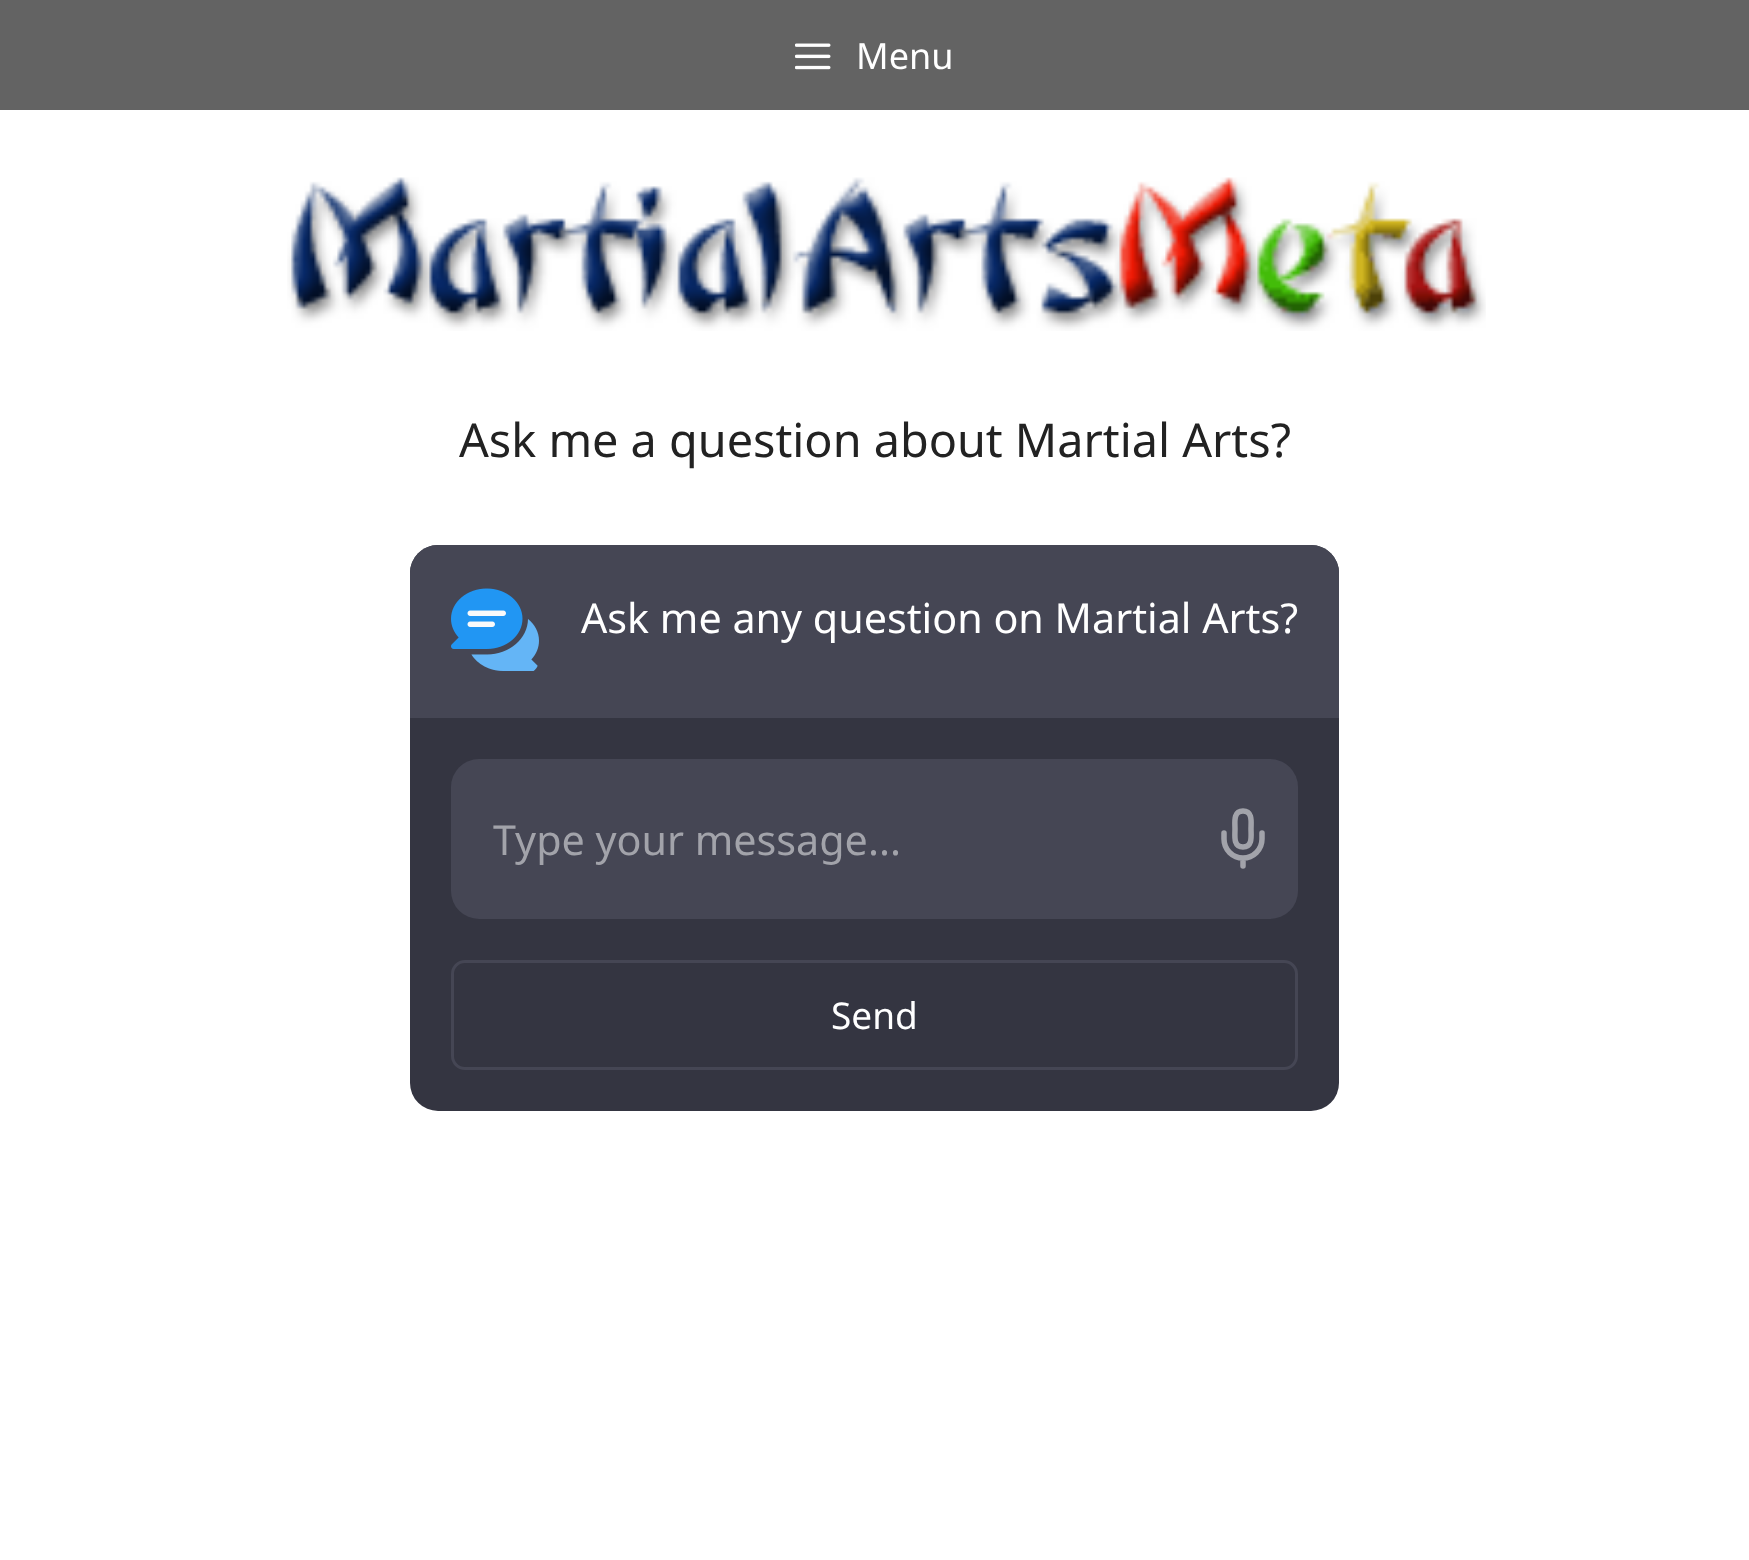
<svg xmlns="http://www.w3.org/2000/svg" width="1749" height="1560" viewBox="0 0 1749 1560">
  <style>
    .t1 { font: 36px Noto Sans; fill: #fff; }
    .t2 { font: 46.75px Noto Sans; fill: #222; }
    .t3 { font: 41.25px Noto Sans; fill: #fff; }
    .t4 { font: 41.25px Noto Sans; fill: #a2a3aa; }
    .t5 { font: 37px Noto Sans; fill: #fff; }
  </style>
  <rect width="100%" height="100%" fill="#636363"/>
  <image x="795" y="43" width="36" height="27" href="images/1.png"/>
  <text x="856" y="69" class="t1">Menu</text>
  <rect x="0" y="110" width="1749" height="1450" fill="#fff"/>
  <image x="287" y="177" width="1199" height="154" href="images/2.png"/>
  <text x="459" y="457" class="t2">Ask me a question about Martial Arts?</text>
  <rect x="410" y="545" width="929" height="566" rx="28" fill="#343541"/>
  <path d="M438 545H1311C1326.5 545 1339 557.5 1339 573V715H410V573C410 557.5 422.5 545 438 545Z" fill="#454654"/>
  <image x="451" y="588" width="88" height="83" href="images/3.png"/>
  <text x="581" y="633" class="t3">Ask me any question on Martial Arts?</text>
  <rect x="410" y="715" width="929" height="3" fill="#454654"/>
  <rect x="451" y="759" width="847" height="160" rx="28" fill="#454654"/>
  <text x="493" y="855" class="t4">Type your message...</text>
  <path d="M1243 811C1233 811 1235 822.5 1235 829C1235 835.5 1233 847 1243 847C1253 847 1251 835.5 1251 829C1251 822.5 1253 811 1243 811ZM1262 833V839C1262 849.5 1253.5 858 1243 858C1232.5 858 1224 849.5 1224 839V833M1243 858V866" fill="none" stroke="#a2a3aa" stroke-width="5.5" stroke-linecap="round" stroke-linejoin="round"/>
  <rect x="452.5" y="961.5" width="844" height="107" rx="12.5" fill="none" stroke="#454654" stroke-width="3"/>
  <text x="831" y="1029" class="t5">Send</text>
</svg>
